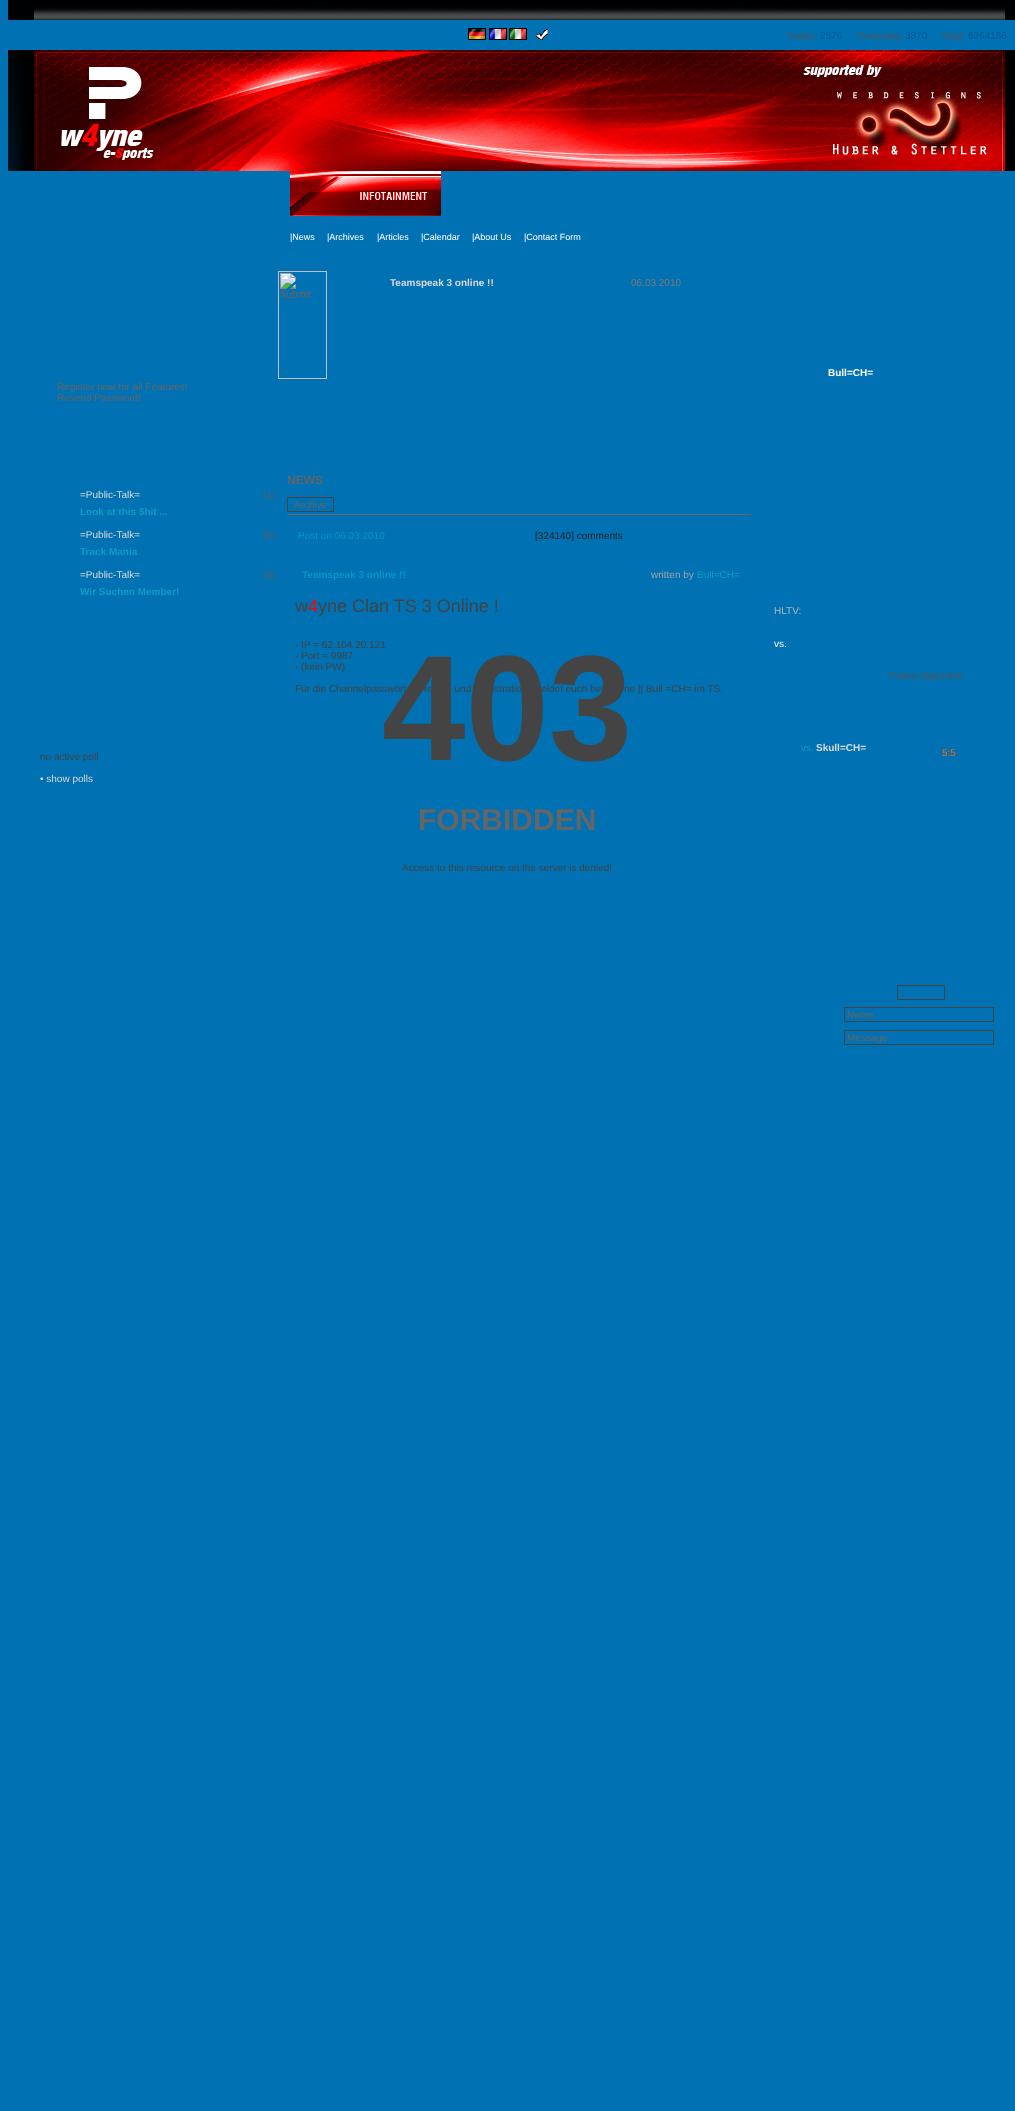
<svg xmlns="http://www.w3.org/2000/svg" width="1015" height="2111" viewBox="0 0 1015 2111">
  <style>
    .t1 { font: 10px Liberation Sans; fill: #555; }
    .t2 { font: 10px Liberation Sans; fill: #005995; }
    .t3 { font: 9px Liberation Sans; fill: #fff; }
    .t4 { font: bold 10px Liberation Sans; fill: #d9d9d9; }
    .t5 { font: 10px Liberation Sans; fill: #777; }
    .t6 { font: bold 10px Liberation Sans; fill: #fff; }
    .t7 { font: 10px Liberation Sans; fill: #656565; }
    .t8 { font: 10px Liberation Sans; fill: #d9d9d9; }
    .t9 { font: 10px Liberation Sans; fill: #5d5d5d; }
    .t10 { font: bold 10px Liberation Sans; fill: #0c9dc7; }
    .t11 { font: 10px Liberation Sans; fill: #444; }
    .t12 { font: bold 12px Liberation Sans; fill: #656565; }
    .t13 { font: 10px Liberation Sans; fill: #0098c4; }
    .t14 { font: 10px Liberation Sans; fill: #222; }
    .t15 { font: bold 10px Liberation Sans; fill: #0098c4; }
    .t16 { font: 10px Liberation Sans; fill: #a3a3a3; }
    .t17 { font: 10px Liberation Sans; fill: #0c9dc7; }
    .t18 { font: 18px Liberation Sans; fill: #444; }
    .t19 { font: 18px Liberation Sans; fill: #f00; }
    .t20 { font: 10px Liberation Sans; fill: #b7b7b7; }
    .t21 { font: 10px Liberation Sans; fill: #fff; }
    .t22 { font: bold 150px Liberation Sans; fill: #444; }
    .t23 { font: bold 30px Liberation Sans; fill: #656565; }
    .t24 { font: 10px Liberation Sans; fill: #f60; }
  </style>
  <rect width="100%" height="100%" fill="#0071b2"/>
  <image x="8" y="0" width="1007" height="20" href="images/1.png"/>
  <image x="468" y="28" width="18" height="12" href="images/2.png"/>
  <image x="489" y="28" width="18" height="12" href="images/3.png"/>
  <image x="509" y="28" width="18" height="12" href="images/4.png"/>
  <image x="536" y="29" width="12" height="11" href="images/5.png"/>
  <text x="787" y="39" class="t1">Today:</text>
  <text x="820" y="39" class="t2">2576</text>
  <text x="856" y="39" class="t1">Yesterday:</text>
  <text x="905" y="39" class="t2">3870</text>
  <text x="941" y="39" class="t1">Total:</text>
  <text x="968" y="39" class="t2">6264186</text>
  <image x="8" y="50" width="1007" height="121" href="images/6.png"/>
  <image x="290" y="171" width="151" height="45" href="images/7.png"/>
  <text x="290" y="240" class="t3">|News</text>
  <text x="327" y="240" class="t3">|Archives</text>
  <text x="377" y="240" class="t3">|Articles</text>
  <text x="421" y="240" class="t3">|Calendar</text>
  <text x="472" y="240" class="t3">|About Us</text>
  <text x="524" y="240" class="t3">|Contact Form</text>
  <text x="390" y="286" class="t4">Teamspeak 3 online !!</text>
  <text x="631" y="286" class="t5">06.03.2010</text>
  <text x="828" y="376" class="t6">Bull=CH=</text>
  <image x="278" y="271" width="49" height="108" href="images/8.png"/>
  <text x="57" y="390" class="t7">Register now for all Features!</text>
  <text x="57" y="401" class="t7">Resend Password!</text>
  <text x="80" y="498" class="t8">=Public-Talk=</text>
  <text x="263" y="498" class="t9">(1)</text>
  <text x="80" y="515" class="t10">Look at this $hit ...</text>
  <text x="80" y="538" class="t8">=Public-Talk=</text>
  <text x="263" y="538" class="t9">(0)</text>
  <text x="80" y="555" class="t10">Track Mania</text>
  <text x="80" y="578" class="t8">=Public-Talk=</text>
  <text x="263" y="578" class="t9">(0)</text>
  <text x="80" y="595" class="t10">Wir Suchen Member!</text>
  <text x="40" y="760" class="t11">no active poll</text>
  <text x="40" y="782" class="t8">• show polls</text>
  <text x="287" y="484" class="t12">NEWS</text>
  <rect x="287.5" y="497.5" width="46" height="14" fill="none" stroke="#444"/>
  <text x="294" y="508" class="t7">Archive</text>
  <rect x="287" y="514" width="464" height="1" fill="#666"/>
  <text x="298" y="539" class="t13">Post on 06.03.2010</text>
  <text x="535" y="539" class="t14">[324140] comments</text>
  <text x="302" y="578" class="t15">Teamspeak 3 online !!</text>
  <text x="651" y="578" class="t16">written by</text>
  <text x="697" y="578" class="t17">Bull=CH=</text>
  <text x="295" y="612" class="t18">w</text>
  <text x="308" y="612" class="t19">4</text>
  <text x="318" y="612" class="t18">yne Clan TS 3 Online !</text>
  <text x="295" y="648" class="t11">- IP = 62.104.20.121</text>
  <text x="295" y="659" class="t11">- Port = 9987</text>
  <text x="295" y="670" class="t11">- (kein PW)</text>
  <text x="295" y="692" class="t11">Für die Channelpasswörter, Rechte und Registration, meldet euch bei w4yne || Bull =CH= im TS.</text>
  <text x="774" y="614" class="t20">HLTV:</text>
  <text x="774" y="647" class="t21">vs.</text>
  <text x="889" y="679" class="t1">Follow Matchlink</text>
  <text x="382" y="760" class="t22">403</text>
  <text x="418" y="830" class="t23">FORBIDDEN</text>
  <text x="402" y="871" class="t11">Access to this resource on the server is denied!</text>
  <rect x="897.5" y="985.5" width="47" height="14" fill="none" stroke="#444"/>
  <rect x="844.5" y="1007.5" width="149" height="14" fill="none" stroke="#444"/>
  <text x="847" y="1018" class="t7">Name</text>
  <rect x="844.5" y="1030.5" width="149" height="14" fill="none" stroke="#444"/>
  <text x="847" y="1041" class="t7">Message</text>
  <text x="801" y="751" class="t17">vs.</text>
  <text x="816" y="751" class="t4">Skull=CH=</text>
  <text x="942" y="756" class="t24">5:5</text>
</svg>
